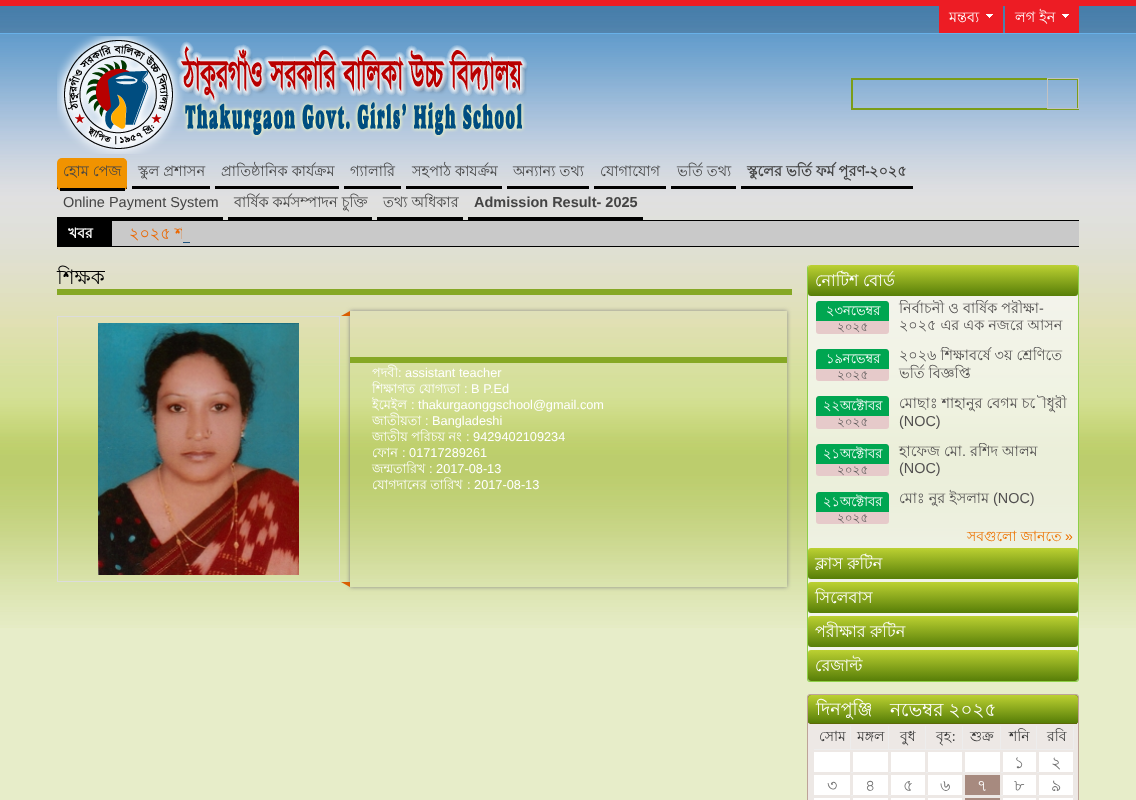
<svg xmlns="http://www.w3.org/2000/svg" width="1136" height="800" viewBox="0 0 1136 800">
  <style>
    .t1 { font: 14.4px Lohit Bengali; fill: #fff; }
    .t2 { font: 14.5px Lohit Bengali; fill: #444; }
    .t3 { font: bold 14.5px Lohit Bengali; fill: #444; }
    .t4 { font: bold 14.5px Liberation Sans; fill: #444; }
    .t5 { font: 14.5px Liberation Sans; fill: #444; }
    .t6 { font: bold 14px Lohit Bengali; fill: #fff; }
    .t7 { font: 16px Lohit Bengali; fill: #eb6700; }
    .t8 { font: 20px Lohit Bengali; fill: #000; }
    .t9 { font: 12.75px Lohit Bengali; fill: #fff; }
    .t10 { font: 12.75px Liberation Sans; fill: #fff; }
    .t11 { font: 16px Lohit Bengali; fill: #fff; }
    .t12 { font: 13px Lohit Bengali; fill: #fff; }
    .t13 { font: 12px Lohit Bengali; fill: #5e5b5b; }
    .t14 { font: 14.4px Lohit Bengali; fill: #514f4f; }
    .t15 { font: 14.4px Liberation Sans; fill: #514f4f; }
    .t16 { font: 14px Lohit Bengali; fill: #ec7200; }
    .t17 { font: 14px Liberation Sans; fill: #ec7200; }
    .t18 { font: 17.5px Lohit Bengali; fill: #fff; }
    .t19 { font: 18.5px Lohit Bengali; fill: #fff; }
    .t20 { font: 14px Lohit Bengali; fill: #373737; }
    .t21 { font: 16px Lohit Bengali; fill: #717171; }
  </style>
  <defs>
    <clipPath id="clip1"><path d="M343 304H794V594H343ZM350 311H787V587H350Z" clip-rule="evenodd"/></clipPath>
    <linearGradient id="g1" gradientUnits="userSpaceOnUse" x1="808" y1="265" x2="808" y2="296"><stop offset="0" stop-color="#bcd132"/><stop offset="1" stop-color="#577e08"/></linearGradient>
    <clipPath id="clip2"><rect x="816" y="300" width="254" height="39"/></clipPath>
    <clipPath id="clip3"><rect x="816" y="347" width="254" height="39"/></clipPath>
    <clipPath id="clip4"><rect x="816" y="395" width="254" height="39"/></clipPath>
    <clipPath id="clip5"><rect x="816" y="443" width="254" height="39"/></clipPath>
    <linearGradient id="g2" gradientUnits="userSpaceOnUse" x1="808" y1="548" x2="808" y2="579"><stop offset="0" stop-color="#bcd132"/><stop offset="1" stop-color="#577e08"/></linearGradient>
    <linearGradient id="g3" gradientUnits="userSpaceOnUse" x1="808" y1="582" x2="808" y2="613"><stop offset="0" stop-color="#bcd132"/><stop offset="1" stop-color="#577e08"/></linearGradient>
    <linearGradient id="g4" gradientUnits="userSpaceOnUse" x1="808" y1="616" x2="808" y2="647"><stop offset="0" stop-color="#bcd132"/><stop offset="1" stop-color="#577e08"/></linearGradient>
    <linearGradient id="g5" gradientUnits="userSpaceOnUse" x1="808" y1="650" x2="808" y2="681"><stop offset="0" stop-color="#bcd132"/><stop offset="1" stop-color="#577e08"/></linearGradient>
    <clipPath id="clip6"><rect x="808" y="695" width="270" height="29" rx="3"/></clipPath>
    <linearGradient id="g6" gradientUnits="userSpaceOnUse" x1="808" y1="695" x2="808" y2="723"><stop offset="0" stop-color="#bcd132"/><stop offset="1" stop-color="#577e08"/></linearGradient>
  </defs>
  <rect width="100%" height="100%" fill="#e7edc9"/>
  <image x="0" y="6" width="1136" height="622" href="images/1.png"/>
  <rect x="0" y="0" width="1136" height="6" fill="#ed1c24"/>
  <rect x="939" y="6" width="64" height="27" fill="#ed1c24"/>
  <text x="949" y="22" class="t1">মন্তব্য</text>
  <image x="986" y="14" width="7" height="4" href="images/2.png"/>
  <rect x="1005" y="6" width="74" height="27" fill="#ed1c24"/>
  <text x="1015" y="22" class="t1">লগ ইন</text>
  <image x="1062" y="14" width="7" height="4" href="images/2.png"/>
  <image x="57" y="36" width="471" height="118" href="images/3.png"/>
  <rect x="852" y="79" width="226" height="30" fill="none" stroke="#7b9d18" stroke-width="2"/>
  <rect x="1047.5" y="78.5" width="31" height="30" fill="none" stroke="#c2c2c2"/>
  <rect x="57" y="186" width="70" height="3" fill="#000"/>
  <rect x="57" y="158" width="70" height="33" rx="5" fill="#f19300"/>
  <rect x="60" y="188" width="65" height="3" fill="#000"/>
  <rect x="70" y="158" width="57" height="30" rx="5" fill="#f19300"/>
  <rect x="215" y="186" width="124" height="3" fill="#000"/>
  <text x="221" y="176" class="t2">প্রাতিষ্ঠানিক কার্যক্রম</text>
  <rect x="344" y="186" width="57" height="3" fill="#000"/>
  <text x="350" y="176" class="t2">গ্যালারি</text>
  <rect x="406" y="186" width="96" height="3" fill="#000"/>
  <text x="412" y="176" class="t2">সহপাঠ কাযর্ক্রম</text>
  <rect x="671" y="186" width="65" height="3" fill="#000"/>
  <text x="677" y="176" class="t2">ভর্তি তথ্য</text>
  <rect x="741" y="186" width="172" height="3" fill="#000"/>
  <text x="747" y="176" class="t3">স্কুলের ভর্তি ফর্ম পূরণ</text>
  <text x="865" y="176" class="t4">-</text>
  <text x="869" y="176" class="t3">২০২৫</text>
  <text x="63" y="176" class="t2">হোম পেজ</text>
  <rect x="132" y="186" width="78" height="3" fill="#000"/>
  <text x="138" y="176" class="t2">স্কুল প্রশাসন</text>
  <rect x="507" y="186" width="82" height="3" fill="#000"/>
  <text x="513" y="176" class="t2">অন্যান্য তথ্য</text>
  <rect x="594" y="186" width="72" height="3" fill="#000"/>
  <text x="600" y="176" class="t2">যোগাযোগ</text>
  <rect x="57" y="217" width="166" height="3" fill="#000"/>
  <text x="63" y="207" class="t5">Online Payment System</text>
  <rect x="228" y="217" width="144" height="3" fill="#000"/>
  <text x="234" y="207" class="t2">বার্ষিক কর্মসম্পাদন চুক্তি</text>
  <rect x="377" y="217" width="86" height="3" fill="#000"/>
  <text x="383" y="207" class="t2">তথ্য অধিকার</text>
  <rect x="468" y="217" width="175" height="3" fill="#000"/>
  <text x="474" y="207" class="t4">Admission Result- 2025</text>
  <rect x="112" y="221" width="70" height="25" fill="#c9c9c9"/>
  <rect x="57" y="220" width="1022" height="1" fill="#000"/>
  <rect x="57" y="246" width="1022" height="1" fill="#000"/>
  <rect x="57" y="221" width="55" height="25" fill="#000"/>
  <text x="68" y="238" class="t6">খবর</text>
  <text x="129" y="239" class="t7">২০২৫ শ</text>
  <rect x="182" y="221" width="897" height="25" fill="#c9c9c9"/>
  <rect x="183" y="242" width="7" height="1" fill="#1f527b"/>
  <rect x="57" y="289" width="735" height="6" fill="#86a824"/>
  <text x="57" y="284" class="t8">শিক্ষক</text>
  <rect x="57.5" y="316.5" width="282" height="265" fill="none" stroke="#dcdcdc"/>
  <image x="98" y="323" width="201" height="252" href="images/4.png"/>
  <g clip-path="url(#clip1)">
    <rect x="350" y="311" width="437" height="276" fill="#888" filter="blur(2px)"/>
  </g>
  <image x="341" y="311" width="9" height="276" href="images/5.png"/>
  <rect x="350" y="357" width="437" height="6" fill="#86a824"/>
  <text x="372" y="377" class="t9">পদবী</text>
  <text x="398" y="377" class="t10">: assistant teacher</text>
  <text x="372" y="393" class="t9">শিক্ষাগত যোগ্যতা</text>
  <text x="464" y="393" class="t10">: B P.Ed</text>
  <text x="372" y="409" class="t9">ইমেইল</text>
  <text x="411" y="409" class="t10">: thakurgaonggschool@gmail.com</text>
  <text x="372" y="425" class="t9">জাতীয়তা</text>
  <text x="425" y="425" class="t10">: Bangladeshi</text>
  <text x="372" y="441" class="t9">জাতীয় পরিচয় নং</text>
  <text x="466" y="441" class="t10">: 9429402109234</text>
  <text x="372" y="457" class="t9">ফোন</text>
  <text x="402" y="457" class="t10">: 01717289261</text>
  <text x="372" y="473" class="t9">জন্মতারিখ</text>
  <text x="429" y="473" class="t10">: 2017-08-13</text>
  <text x="372" y="489" class="t9">যোগদানের তারিখ</text>
  <text x="467" y="489" class="t10">: 2017-08-13</text>
  <rect x="807" y="265" width="272" height="417" rx="3" fill="#f7f7f7c9"/>
  <path d="M810 265H1076C1078 265 1079 266 1079 268V679C1079 681 1078 682 1076 682H810C808 682 807 681 807 679V268C807 266 808 265 810 265ZM810 265H1076C1077 265 1078 266 1078 268V679C1078 680 1077 681 1076 681H810C809 681 808 680 808 679V268C808 266 809 265 810 265Z" fill="#8ecf48" fill-rule="evenodd"/>
  <rect x="808" y="265" width="270" height="31" rx="3" fill="url(#g1)"/>
  <text x="815" y="286" class="t11">নোটিশ বোর্ড</text>
  <rect x="816" y="301" width="73" height="33" rx="3" fill="#e6caca"/>
  <path d="M819 301H886C887.5 301 889 302.5 889 304V321H816V304C816 302.5 817.5 301 819 301Z" fill="#00a651"/>
  <text x="826" y="315" class="t12">২৩নভেম্বর</text>
  <text x="837" y="331" class="t13">২০২৫</text>
  <g clip-path="url(#clip2)">
    <text x="899" y="313" class="t14">নির্বাচনী ও বার্ষিক পরীক্ষা</text>
  </g>
  <text x="1039" y="313" class="t15">-</text>
  <text x="899" y="330" class="t14">২০২৫ এর এক নজরে আসন</text>
  <rect x="816" y="349" width="73" height="32" rx="3" fill="#e6caca"/>
  <path d="M819 349H886C887.5 349 889 350.5 889 352V369H816V352C816 350.5 817.5 349 819 349Z" fill="#00a651"/>
  <text x="826" y="363" class="t12">১৯নভেম্বর</text>
  <text x="837" y="379" class="t13">২০২৫</text>
  <g clip-path="url(#clip3)">
    <text x="899" y="360" class="t14">২০২৬ শিক্ষাবর্ষে ৩য় শ্রেণিতে</text>
  </g>
  <text x="899" y="378" class="t14">ভর্তি বিজ্ঞপ্তি</text>
  <rect x="816" y="396" width="73" height="33" rx="3" fill="#e6caca"/>
  <path d="M819 396H886C887.5 396 889 397.5 889 399V416H816V399C816 397.5 817.5 396 819 396Z" fill="#00a651"/>
  <text x="823" y="410" class="t12">২২অক্টোবর</text>
  <text x="837" y="426" class="t13">২০২৫</text>
  <g clip-path="url(#clip4)">
    <text x="899" y="408" class="t14">মোছাঃ শাহানুর বেগম চৌধুরী</text>
  </g>
  <text x="899" y="426" class="t15">(NOC)</text>
  <rect x="816" y="444" width="73" height="32" rx="3" fill="#e6caca"/>
  <path d="M819 444H886C887.5 444 889 445.5 889 447V464H816V447C816 445.5 817.5 444 819 444Z" fill="#00a651"/>
  <text x="823" y="458" class="t12">২১অক্টোবর</text>
  <text x="837" y="474" class="t13">২০২৫</text>
  <text x="899" y="456" class="t14">হাফেজ মো</text>
  <text x="962" y="456" class="t15">.</text>
  <g clip-path="url(#clip5)">
    <text x="970" y="456" class="t14">রশিদ আলম</text>
  </g>
  <text x="899" y="473" class="t15">(NOC)</text>
  <rect x="816" y="492" width="73" height="32" rx="3" fill="#e6caca"/>
  <path d="M819 492H886C887.5 492 889 493.5 889 495V512H816V495C816 493.5 817.5 492 819 492Z" fill="#00a651"/>
  <text x="823" y="506" class="t12">২১অক্টোবর</text>
  <text x="837" y="522" class="t13">২০২৫</text>
  <text x="899" y="503" class="t14">মোঃ নুর ইসলাম</text>
  <text x="993" y="503" class="t15">(NOC)</text>
  <text x="967" y="541" class="t16">সবগুলো জানতে</text>
  <text x="1065" y="541" class="t17">»</text>
  <rect x="808" y="548" width="270" height="31" rx="3" fill="url(#g2)"/>
  <text x="815" y="569" class="t11">ক্লাস রুটিন</text>
  <rect x="808" y="582" width="270" height="31" rx="3" fill="url(#g3)"/>
  <text x="815" y="603" class="t11">সিলেবাস</text>
  <rect x="808" y="616" width="270" height="31" rx="3" fill="url(#g4)"/>
  <text x="815" y="637" class="t11">পরীক্ষার রুটিন</text>
  <rect x="808" y="650" width="270" height="31" rx="3" fill="url(#g5)"/>
  <text x="815" y="671" class="t11">রেজাল্ট</text>
  <rect x="807.5" y="694.5" width="271" height="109" rx="2.5" fill="none" stroke="#bea398"/>
  <rect x="808" y="721" width="270" height="79" fill="#ede8e5"/>
  <rect x="808" y="695" width="270" height="29" rx="3" fill="#5c6907"/>
  <g clip-path="url(#clip6)">
    <path d="M811 695H1075C1076.5 695 1078 696.5 1078 698V723H808V698C808 696.5 809.5 695 811 695Z" fill="url(#g6)"/>
  </g>
  <rect x="810" y="723" width="267" height="1" fill="#5c6907"/>
  <text x="816" y="715" class="t18">দিনপুঞ্জি</text>
  <text x="890" y="716" class="t19">নভেম্বর ২০২৫</text>
  <rect x="1073" y="726" width="1" height="24" fill="#ededed"/>
  <rect x="814" y="749" width="260" height="1" fill="#ededed"/>
  <rect x="850" y="726" width="1" height="24" fill="#ededed"/>
  <text x="819" y="741" class="t20">সোম</text>
  <rect x="888" y="726" width="1" height="24" fill="#ededed"/>
  <text x="857" y="741" class="t20">মঙ্গল</text>
  <rect x="925" y="726" width="1" height="24" fill="#ededed"/>
  <text x="900" y="741" class="t20">বুধ</text>
  <rect x="962" y="726" width="1" height="24" fill="#ededed"/>
  <text x="936" y="741" class="t20">বৃহ:</text>
  <rect x="1000" y="726" width="1" height="24" fill="#ededed"/>
  <text x="970" y="741" class="t20">শুক্র</text>
  <rect x="1036" y="726" width="1" height="24" fill="#ededed"/>
  <text x="1009" y="741" class="t20">শনি</text>
  <text x="1047" y="741" class="t20">রবি</text>
  <rect x="1073" y="773" width="1" height="27" fill="#ededed"/>
  <rect x="851" y="772" width="188" height="1" fill="#ededed"/>
  <rect x="814" y="752" width="36" height="20" fill="#fff"/>
  <rect x="853" y="752" width="35" height="20" fill="#fff"/>
  <rect x="853" y="772" width="36" height="1" fill="#ede8e5"/>
  <rect x="891" y="752" width="34" height="20" fill="#fff"/>
  <rect x="891" y="772" width="35" height="1" fill="#ede8e5"/>
  <rect x="928" y="752" width="34" height="20" fill="#fff"/>
  <rect x="928" y="772" width="35" height="1" fill="#ede8e5"/>
  <rect x="965" y="752" width="35" height="20" fill="#fff"/>
  <rect x="965" y="772" width="36" height="1" fill="#ede8e5"/>
  <rect x="1003" y="752" width="33" height="20" fill="#fff"/>
  <rect x="1003" y="772" width="34" height="1" fill="#ede8e5"/>
  <text x="1014" y="768" class="t21">১</text>
  <rect x="1039" y="752" width="34" height="20" fill="#fff"/>
  <text x="1051" y="768" class="t21">২</text>
  <rect x="851" y="795" width="188" height="1" fill="#ededed"/>
  <rect x="814" y="775" width="36" height="20" fill="#fff"/>
  <text x="827" y="791" class="t21">৩</text>
  <rect x="853" y="775" width="35" height="20" fill="#fff"/>
  <rect x="853" y="795" width="36" height="1" fill="#ede8e5"/>
  <text x="865" y="791" class="t21">৪</text>
  <rect x="891" y="775" width="34" height="20" fill="#fff"/>
  <rect x="891" y="795" width="35" height="1" fill="#ede8e5"/>
  <text x="903" y="791" class="t21">৫</text>
  <rect x="928" y="775" width="34" height="20" fill="#fff"/>
  <rect x="928" y="795" width="35" height="1" fill="#ede8e5"/>
  <text x="940" y="791" class="t21">৬</text>
  <rect x="965" y="775" width="35" height="20" fill="#a78a7f"/>
  <rect x="965" y="795" width="36" height="1" fill="#ede8e5"/>
  <text x="977" y="791" class="t11">৭</text>
  <rect x="1003" y="775" width="33" height="20" fill="#fff"/>
  <rect x="1003" y="795" width="34" height="1" fill="#ede8e5"/>
  <text x="1014" y="791" class="t21">৮</text>
  <rect x="1039" y="775" width="34" height="20" fill="#fff"/>
  <rect x="1073" y="775" width="1" height="21" fill="#ede8e5"/>
  <text x="1051" y="791" class="t21">৯</text>
  <rect x="814" y="798" width="37" height="2" fill="#fff"/>
  <rect x="850" y="798" width="1" height="2" fill="#ede8e5"/>
  <rect x="853" y="798" width="36" height="2" fill="#fff"/>
  <rect x="888" y="798" width="1" height="2" fill="#ede8e5"/>
  <rect x="891" y="798" width="35" height="2" fill="#fff"/>
  <rect x="925" y="798" width="1" height="2" fill="#ede8e5"/>
  <rect x="928" y="798" width="35" height="2" fill="#fff"/>
  <rect x="962" y="798" width="1" height="2" fill="#ede8e5"/>
  <rect x="965" y="798" width="36" height="2" fill="#a78a7f"/>
  <rect x="1000" y="798" width="1" height="2" fill="#ede8e5"/>
  <rect x="1003" y="798" width="34" height="2" fill="#fff"/>
  <rect x="1036" y="798" width="1" height="2" fill="#ede8e5"/>
  <rect x="1039" y="798" width="35" height="2" fill="#fff"/>
  <rect x="1073" y="798" width="1" height="2" fill="#ede8e5"/>
</svg>
